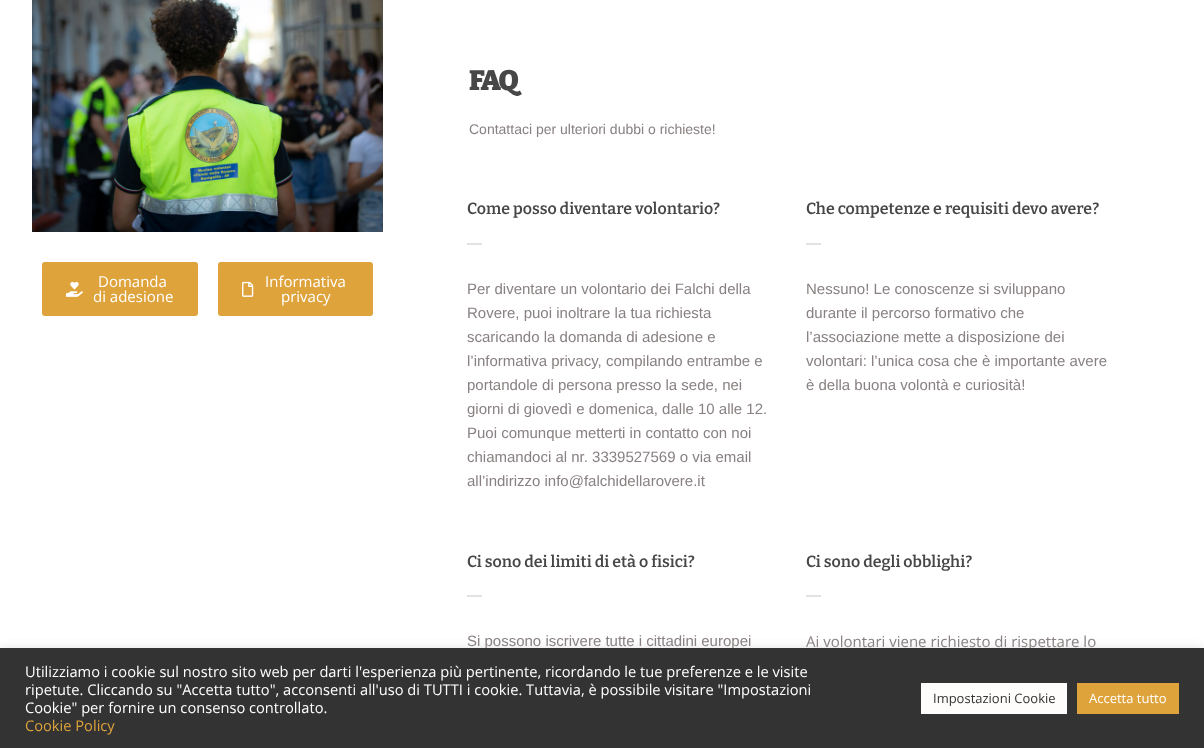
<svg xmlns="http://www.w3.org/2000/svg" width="1204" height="748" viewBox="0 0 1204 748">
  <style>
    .t1 { font: 15px Open Sans; fill: #fff; }
    .t2 { font: 900 28px Bitter; letter-spacing: -2px; fill: #474747; }
    .t3 { font: 14px Liberation Sans; fill: #898181; }
    .t4 { font: 600 16px Bitter; fill: #474747; }
    .t5 { font: 15px Liberation Sans; fill: #898181; }
    .t6 { font: 15px Open Sans; fill: #898181; }
    .t7 { font: 14.67px Open Sans; fill: #fff; }
    .t8 { font: 14.67px Open Sans; fill: #dfa33b; }
    .t9 { font: 13px Open Sans; fill: #333; }
    .t10 { font: 13px Open Sans; fill: #fff; }
  </style>
  <rect width="100%" height="100%" fill="#fff"/>
  <image x="32" y="0" width="351" height="232" href="images/1.png"/>
  <rect x="42" y="262" width="156" height="54" rx="3" fill="#dfa33b"/>
  <image x="66" y="281" width="17" height="16" href="images/2.png"/>
  <text x="98" y="287" class="t1">Domanda</text>
  <text x="93" y="302" class="t1">di adesione</text>
  <rect x="218" y="262" width="155" height="54" rx="3" fill="#dfa33b"/>
  <image x="242" y="281" width="12" height="16" href="images/3.png"/>
  <text x="265" y="287" class="t1">Informativa</text>
  <text x="281" y="302" class="t1">privacy</text>
  <text x="469" y="90" class="t2">FAQ</text>
  <text x="469" y="134" class="t3">Contattaci per ulteriori dubbi o richieste!</text>
  <text x="467" y="214" class="t4">Come posso diventare volontario?</text>
  <rect x="467" y="243" width="15" height="2" fill="#e2e2e2"/>
  <text x="467" y="294" class="t5">Per diventare un volontario dei Falchi della</text>
  <text x="467" y="318" class="t5">Rovere, puoi inoltrare la tua richiesta</text>
  <text x="467" y="342" class="t5">scaricando la domanda di adesione e</text>
  <text x="467" y="366" class="t5">l’informativa privacy, compilando entrambe e</text>
  <text x="467" y="390" class="t5">portandole di persona presso la sede, nei</text>
  <text x="467" y="414" class="t5">giorni di giovedì e domenica, dalle 10 alle 12.</text>
  <text x="467" y="438" class="t5">Puoi comunque metterti in contatto con noi</text>
  <text x="467" y="462" class="t5">chiamandoci al nr. 3339527569 o via email</text>
  <text x="467" y="486" class="t5">all’indirizzo info@falchidellarovere.it</text>
  <text x="806" y="214" class="t4">Che competenze e requisiti devo avere?</text>
  <rect x="806" y="243" width="15" height="2" fill="#e2e2e2"/>
  <text x="806" y="294" class="t5">Nessuno! Le conoscenze si sviluppano</text>
  <text x="806" y="318" class="t5">durante il percorso formativo che</text>
  <text x="806" y="342" class="t5">l’associazione mette a disposizione dei</text>
  <text x="806" y="366" class="t5">volontari: l’unica cosa che è importante avere</text>
  <text x="806" y="390" class="t5">è della buona volontà e curiosità!</text>
  <text x="467" y="567" class="t4">Ci sono dei limiti di età o fisici?</text>
  <rect x="467" y="595" width="15" height="2" fill="#e2e2e2"/>
  <text x="467" y="646" class="t5">Si possono iscrivere tutte i cittadini europei</text>
  <text x="806" y="567" class="t4">Ci sono degli obblighi?</text>
  <rect x="806" y="595" width="15" height="2" fill="#e2e2e2"/>
  <text x="806" y="647" class="t6">Ai volontari viene richiesto di rispettare lo</text>
  <rect x="0" y="647" width="1204" height="100" fill="#acabab4d" filter="blur(5px)"/>
  <rect x="0" y="648" width="1204" height="100" fill="#333"/>
  <text x="25" y="677" class="t7">Utilizziamo i cookie sul nostro sito web per darti l'esperienza più pertinente, ricordando le tue preferenze e le visite</text>
  <text x="25" y="695" class="t7">ripetute. Cliccando su "Accetta tutto", acconsenti all'uso di TUTTI i cookie. Tuttavia, è possibile visitare "Impostazioni</text>
  <text x="25" y="713" class="t7">Cookie" per fornire un consenso controllato.</text>
  <text x="25" y="731" class="t8">Cookie Policy</text>
  <rect x="921" y="683" width="146" height="31" fill="#fffcfc"/>
  <text x="933" y="703" class="t9">Impostazioni Cookie</text>
  <rect x="1077" y="683" width="102" height="31" fill="#dfa33b"/>
  <text x="1089" y="703" class="t10">Accetta tutto</text>
</svg>
